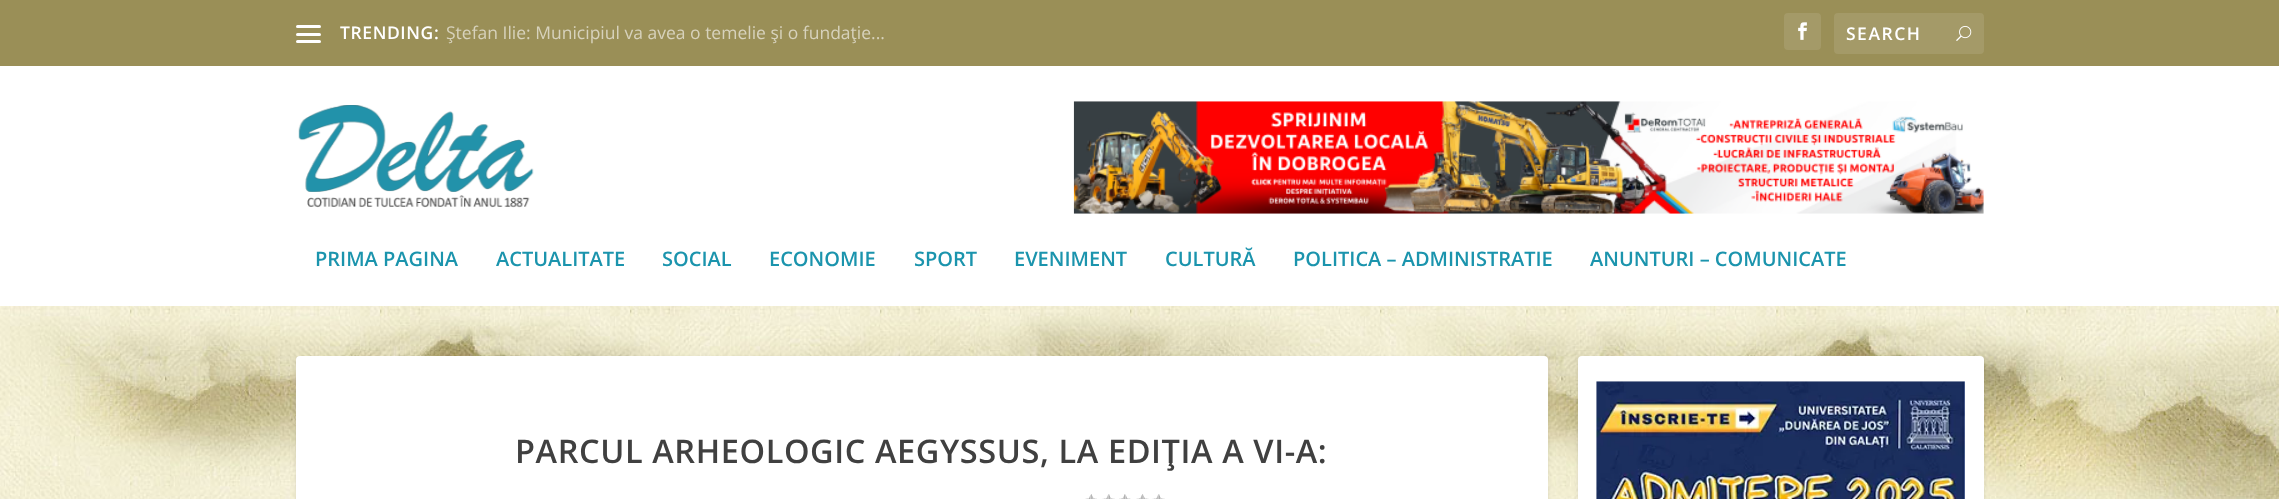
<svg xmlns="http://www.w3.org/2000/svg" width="2279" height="499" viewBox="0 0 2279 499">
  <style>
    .t1 { font: 600 17.5px Open Sans; letter-spacing: 0.6px; fill: #fff; }
    .t2 { font: 17.5px Open Sans; fill: #d7d2bc; }
    .t3 { font: 600 17.5px Open Sans; letter-spacing: 1.5px; fill: #fff; }
    .t4 { font: 600 20px Open Sans; fill: #1b94ad; }
    .t5 { font: 600 32.5px Open Sans; letter-spacing: 0.6px; fill: #404040; }
  </style>
  <rect width="100%" height="100%" fill="#fff"/>
  <image x="0" y="306" width="2279" height="1" href="images/1.png"/>
  <rect x="0" y="0" width="2279" height="66" fill="#9a8f57"/>
  <rect x="296" y="25" width="25" height="3" rx="1.5" fill="#fff"/>
  <rect x="296" y="33" width="25" height="3" rx="1.5" fill="#fff"/>
  <rect x="296" y="40" width="25" height="3" rx="1.5" fill="#fff"/>
  <text x="340" y="39" class="t1">TRENDING:</text>
  <text x="446" y="39" class="t2">Ştefan Ilie: Municipiul va avea o temelie şi o fundaţie...</text>
  <rect x="1784" y="13" width="37" height="37" rx="4" fill="#a49a68"/>
  <image x="1798" y="22" width="9" height="18" href="images/2.png"/>
  <rect x="1834" y="13" width="150" height="41" rx="4" fill="#a49a68"/>
  <text x="1846" y="40" class="t3">SEARCH</text>
  <image x="1956" y="25" width="16" height="16" href="images/3.png"/>
  <image x="298" y="105" width="236" height="103" href="images/4.png"/>
  <image x="1073" y="101" width="911" height="113" href="images/5.png"/>
  <text x="315" y="266" class="t4">PRIMA PAGINA</text>
  <text x="496" y="266" class="t4">ACTUALITATE</text>
  <text x="662" y="266" class="t4">SOCIAL</text>
  <text x="769" y="266" class="t4">ECONOMIE</text>
  <text x="914" y="266" class="t4">SPORT</text>
  <text x="1014" y="266" class="t4">EVENIMENT</text>
  <text x="1165" y="266" class="t4">CULTURĂ</text>
  <text x="1293" y="266" class="t4">POLITICA – ADMINISTRATIE</text>
  <text x="1590" y="266" class="t4">ANUNTURI – COMUNICATE</text>
  <image x="0" y="306" width="2279" height="193" href="images/6.png"/>
  <rect x="296" y="358" width="1252" height="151" rx="4" fill="#0000001a" filter="blur(2px)"/>
  <rect x="296" y="356" width="1252" height="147" rx="4" fill="#fff"/>
  <text x="515" y="463" class="t5">PARCUL ARHEOLOGIC AEGYSSUS, LA EDIŢIA A VI-A:</text>
  <image x="1085" y="494" width="12" height="5" href="images/7.png"/>
  <image x="1102" y="494" width="13" height="5" href="images/8.png"/>
  <image x="1119" y="494" width="12" height="5" href="images/9.png"/>
  <image x="1136" y="494" width="13" height="5" href="images/10.png"/>
  <image x="1152" y="494" width="13" height="5" href="images/8.png"/>
  <rect x="1578" y="358" width="406" height="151" rx="4" fill="#0000001a" filter="blur(2px)"/>
  <rect x="1578" y="356" width="406" height="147" rx="4" fill="#fff"/>
  <image x="1596" y="381" width="369" height="118" href="images/11.png"/>
</svg>
